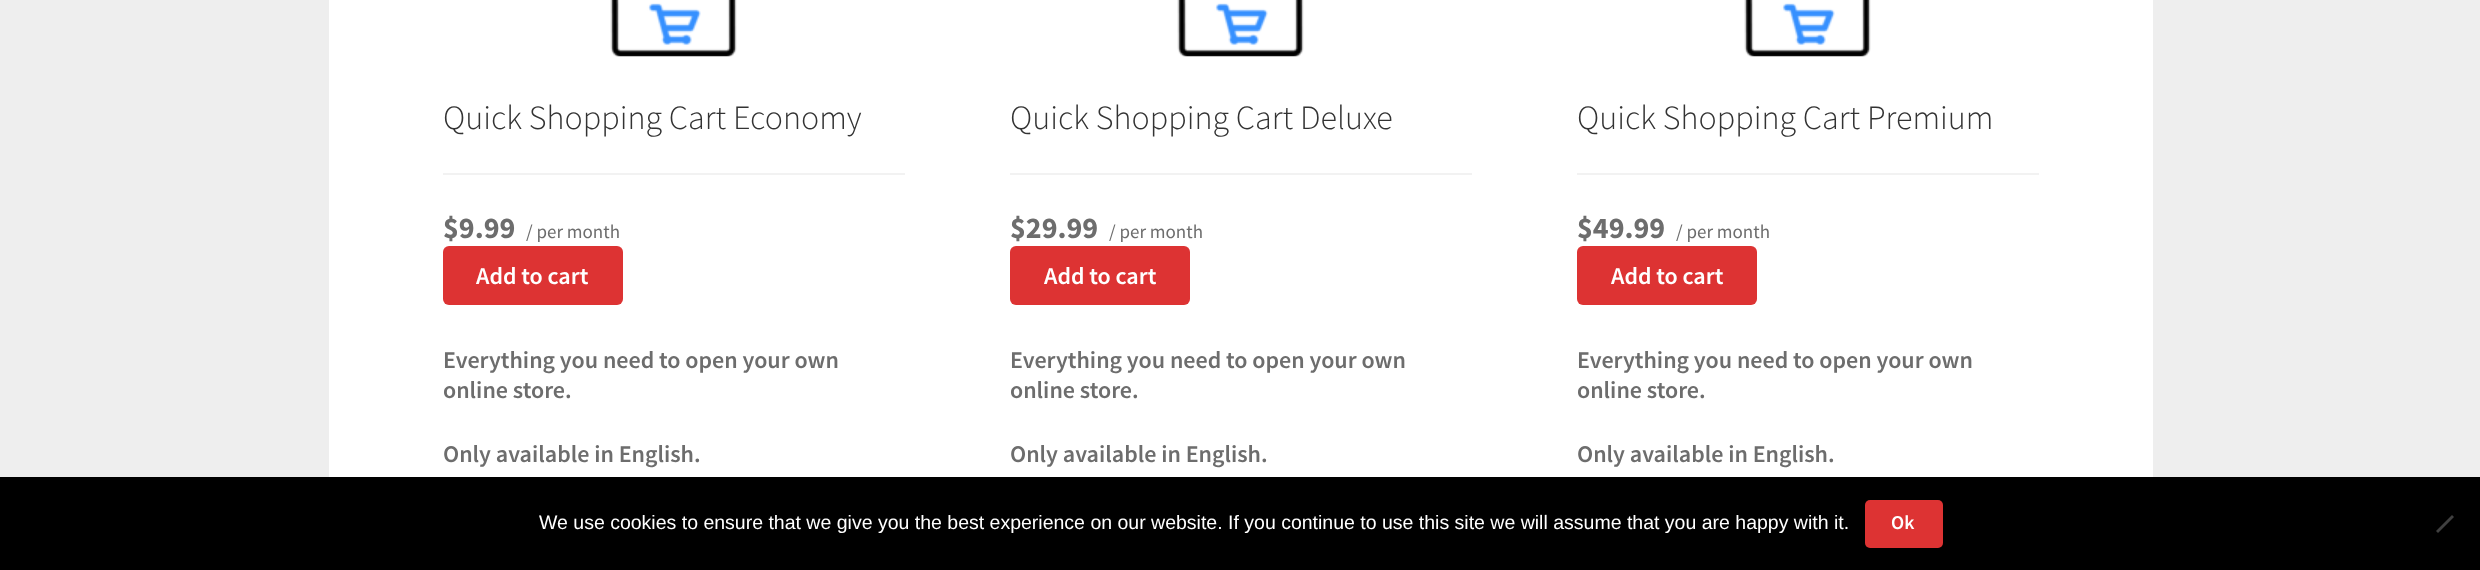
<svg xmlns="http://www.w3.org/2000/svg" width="2480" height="570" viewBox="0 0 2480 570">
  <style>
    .t1 { font: 300 34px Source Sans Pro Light; fill: #333; }
    .t2 { font: bold 30px Source Sans Pro; fill: #6d6d6d; }
    .t3 { font: 19px Source Sans Pro; fill: #6d6d6d; }
    .t4 { font: 600 24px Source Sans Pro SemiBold; fill: #fff; }
    .t5 { font: 600 24px Source Sans Pro SemiBold; fill: #6d6d6d; }
    .t6 { font: 19.5px Liberation Sans; fill: #fff; }
    .t7 { font: 600 19.5px Source Sans Pro SemiBold; fill: #fff; }
  </style>
  <rect width="100%" height="100%" fill="#eee"/>
  <rect x="329" y="0" width="1824" height="477" fill="#fff"/>
  <image x="610" y="0" width="127" height="57" href="images/1.png"/>
  <rect x="443" y="173" width="462" height="2" fill="#f2f2f2"/>
  <text x="443" y="129" class="t1">Quick Shopping Cart Economy</text>
  <text x="443" y="238" class="t2">$9.99</text>
  <text x="526" y="238" class="t3">/ per month</text>
  <rect x="443" y="246" width="180" height="59" rx="6" fill="#d33"/>
  <text x="476" y="284" class="t4">Add to cart</text>
  <text x="443" y="368" class="t5">Everything you need to open your own</text>
  <text x="443" y="398" class="t5">online store.</text>
  <text x="443" y="462" class="t5">Only available in English.</text>
  <image x="1177" y="0" width="127" height="57" href="images/1.png"/>
  <rect x="1010" y="173" width="462" height="2" fill="#f2f2f2"/>
  <text x="1010" y="129" class="t1">Quick Shopping Cart Deluxe</text>
  <text x="1010" y="238" class="t2">$29.99</text>
  <text x="1109" y="238" class="t3">/ per month</text>
  <rect x="1010" y="246" width="180" height="59" rx="6" fill="#d33"/>
  <text x="1044" y="284" class="t4">Add to cart</text>
  <text x="1010" y="368" class="t5">Everything you need to open your own</text>
  <text x="1010" y="398" class="t5">online store.</text>
  <text x="1010" y="462" class="t5">Only available in English.</text>
  <image x="1744" y="0" width="127" height="57" href="images/1.png"/>
  <rect x="1577" y="173" width="462" height="2" fill="#f2f2f2"/>
  <text x="1577" y="129" class="t1">Quick Shopping Cart Premium</text>
  <text x="1577" y="238" class="t2">$49.99</text>
  <text x="1676" y="238" class="t3">/ per month</text>
  <rect x="1577" y="246" width="180" height="59" rx="6" fill="#d33"/>
  <text x="1611" y="284" class="t4">Add to cart</text>
  <text x="1577" y="368" class="t5">Everything you need to open your own</text>
  <text x="1577" y="398" class="t5">online store.</text>
  <text x="1577" y="462" class="t5">Only available in English.</text>
  <rect x="0" y="477" width="2480" height="93" fill="#000"/>
  <text x="539" y="529" class="t6">We use cookies to ensure that we give you the best experience on our website. If you continue to use this site we will assume that you are happy with it.</text>
  <rect x="1865" y="500" width="78" height="48" rx="5" fill="#d33"/>
  <text x="1891" y="529" class="t7">Ok</text>
  <path d="M2452 515L2454 517L2438 533L2436 531Z" fill="#404040"/>
</svg>
